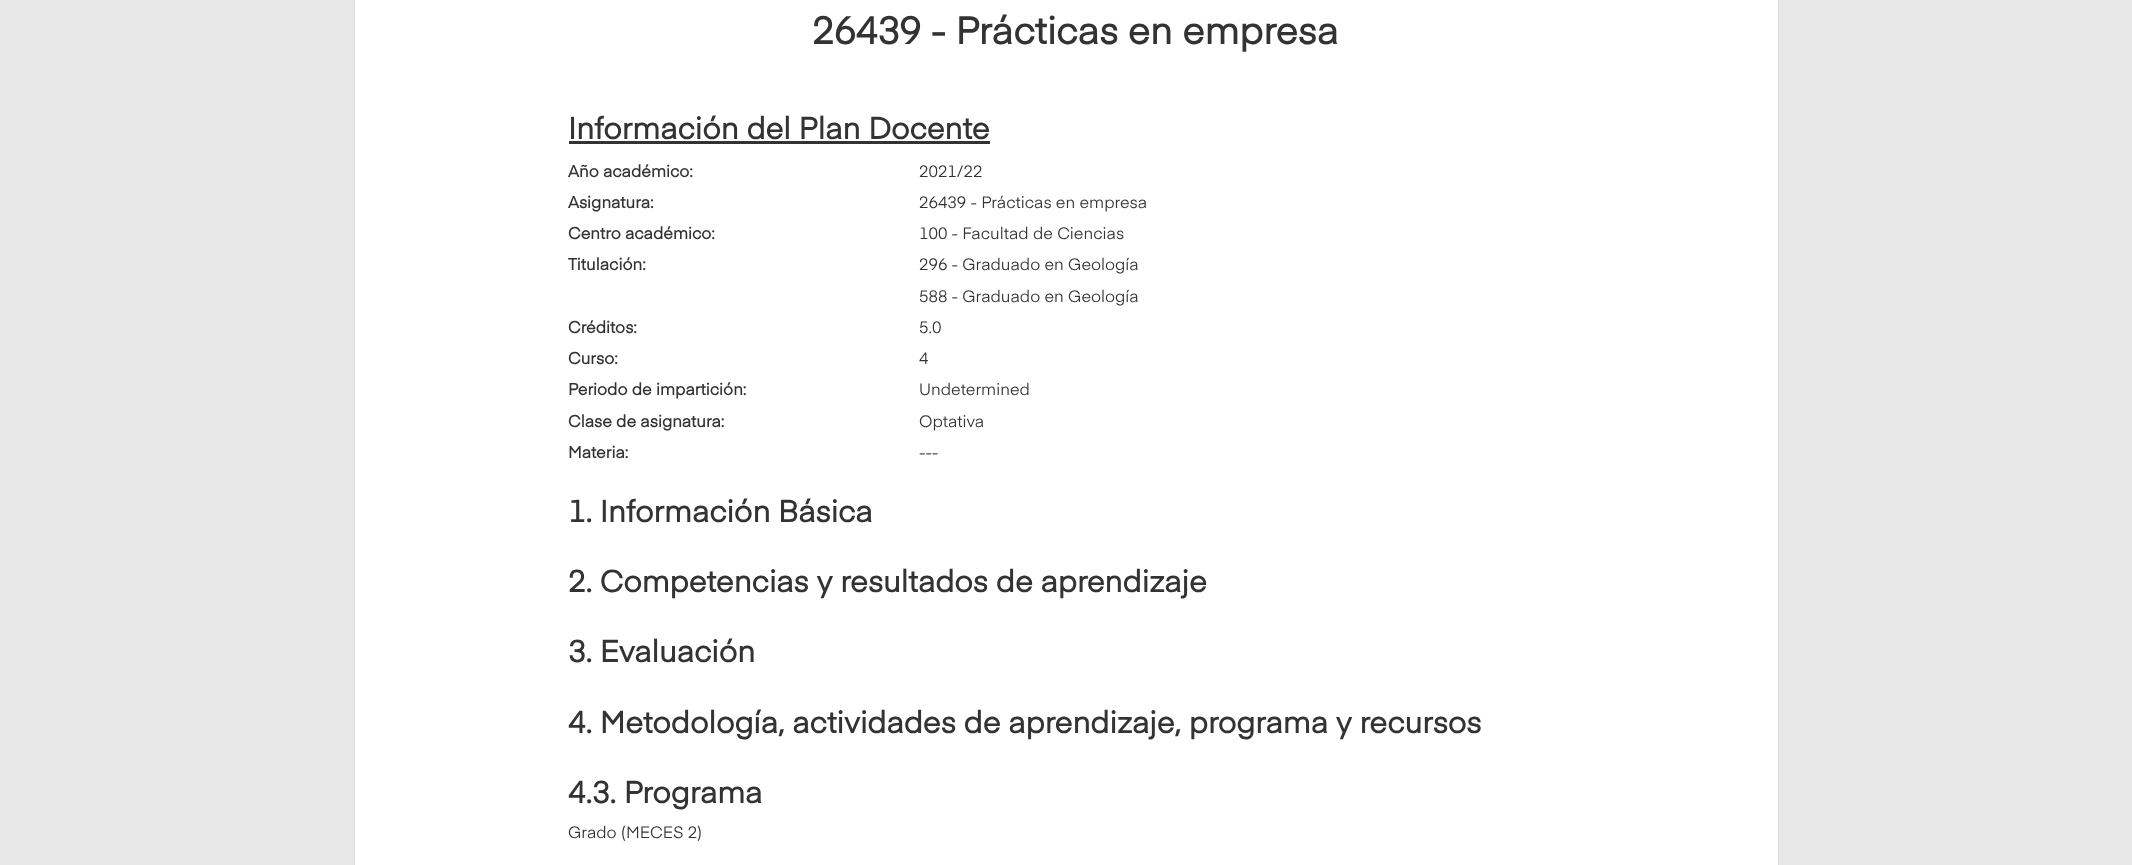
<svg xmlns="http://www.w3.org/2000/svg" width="2132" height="865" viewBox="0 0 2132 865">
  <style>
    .t1 { font: bold 37.5px 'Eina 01'; fill: #333; }
    .t2 { font: bold 30px 'Eina 01'; fill: #333; }
    .t3 { font: bold 16.25px 'Eina 01'; fill: #333; }
    .t4 { font: 16.25px 'Eina 01'; fill: #333; }
  </style>
  <rect width="100%" height="100%" fill="#e7e7e7"/>
  <rect x="354.5" y="-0.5" width="1424" height="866" fill="#fff" stroke="#ddd"/>
  <text x="812" y="44" class="t1">26439 - Prácticas en empresa</text>
  <text x="568" y="139" class="t2">Información del Plan Docente</text>
  <rect x="569" y="141" width="421" height="3" fill="#333"/>
  <text x="568" y="177" class="t3">Año académico:</text>
  <text x="919" y="177" class="t4">2021/22</text>
  <text x="568" y="208" class="t3">Asignatura:</text>
  <text x="919" y="208" class="t4">26439 - Prácticas en empresa</text>
  <text x="568" y="239" class="t3">Centro académico:</text>
  <text x="919" y="239" class="t4">100 - Facultad de Ciencias</text>
  <text x="568" y="270" class="t3">Titulación:</text>
  <text x="919" y="270" class="t4">296 - Graduado en Geología</text>
  <text x="919" y="302" class="t4">588 - Graduado en Geología</text>
  <text x="568" y="333" class="t3">Créditos:</text>
  <text x="919" y="333" class="t4">5.0</text>
  <text x="568" y="364" class="t3">Curso:</text>
  <text x="919" y="364" class="t4">4</text>
  <text x="568" y="395" class="t3">Periodo de impartición:</text>
  <text x="919" y="395" class="t4">Undetermined</text>
  <text x="568" y="427" class="t3">Clase de asignatura:</text>
  <text x="919" y="427" class="t4">Optativa</text>
  <text x="568" y="458" class="t3">Materia:</text>
  <text x="919" y="458" class="t4">---</text>
  <text x="568" y="522" class="t2">1. Información Básica</text>
  <text x="568" y="592" class="t2">2. Competencias y resultados de aprendizaje</text>
  <text x="568" y="662" class="t2">3. Evaluación</text>
  <text x="568" y="733" class="t2">4. Metodología, actividades de aprendizaje, programa y recursos</text>
  <text x="568" y="803" class="t2">4.3. Programa</text>
  <text x="568" y="838" class="t4">Grado (MECES 2)</text>
</svg>
